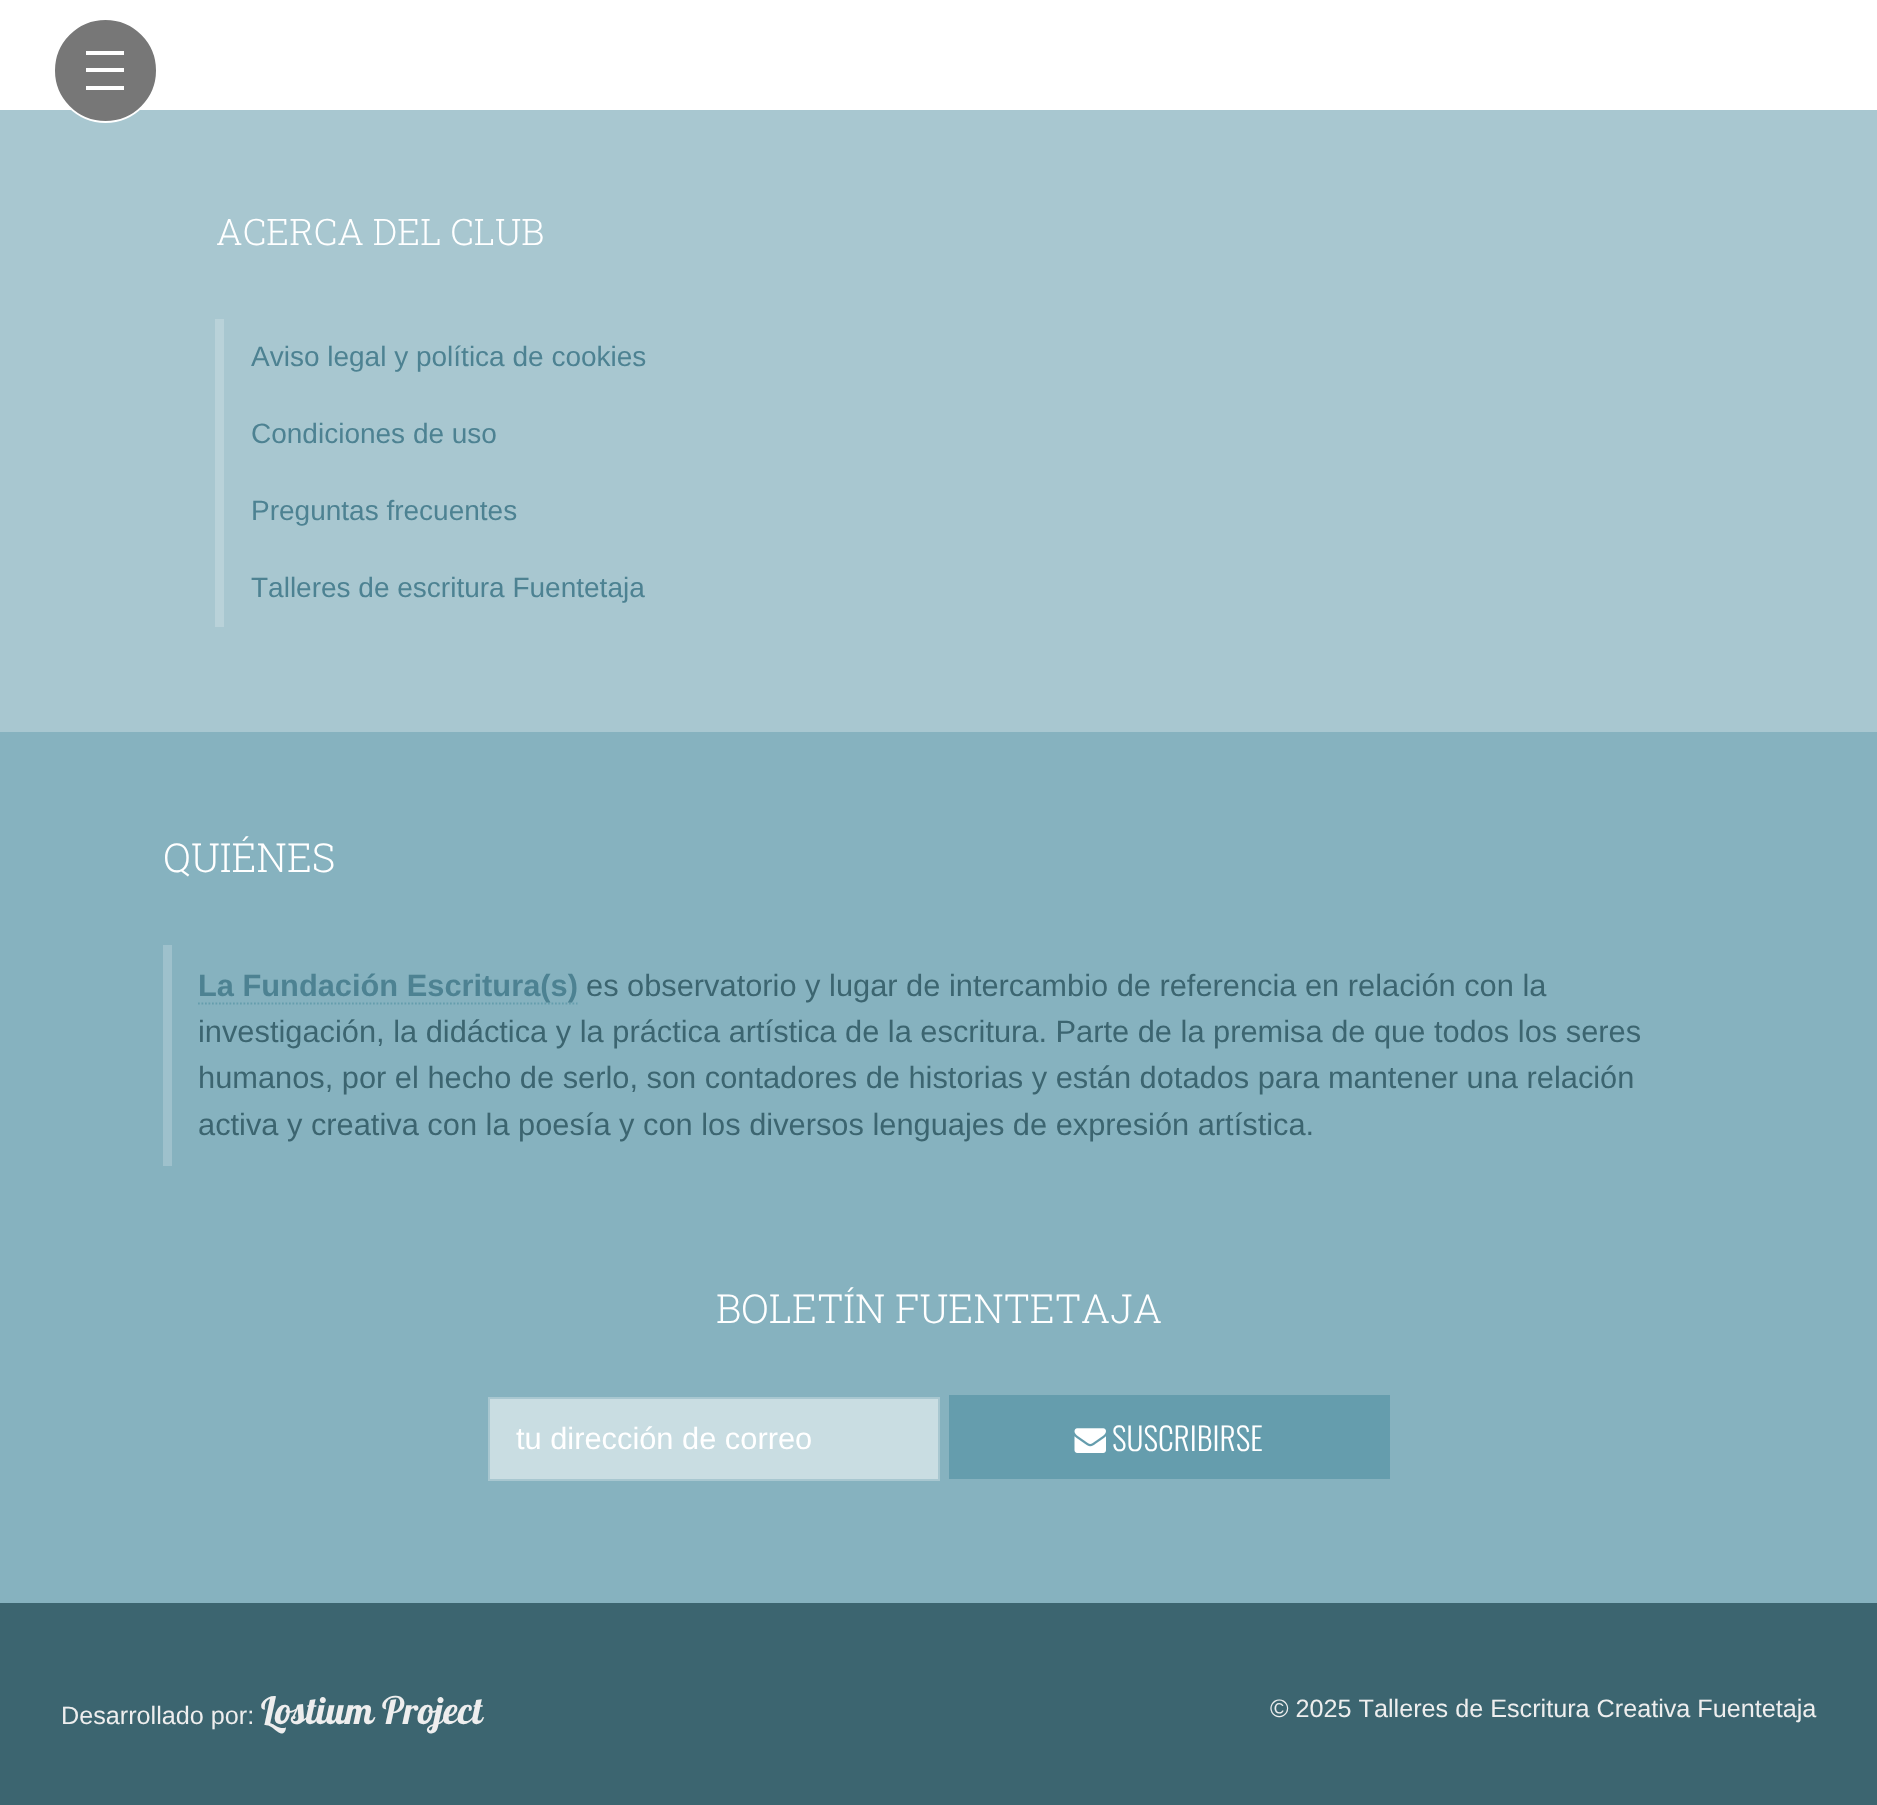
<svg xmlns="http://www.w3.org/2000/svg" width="1877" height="1805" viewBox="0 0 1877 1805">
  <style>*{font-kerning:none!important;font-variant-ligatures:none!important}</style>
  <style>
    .t1 { font: 300 36.5px Roboto Slab; fill: #fff; }
    .t2 { font: 28px Liberation Sans; fill: #4d8292; }
    .t3 { font: 300 40px Roboto Slab; fill: #fff; }
    .t4 { font: bold 30.8px Liberation Sans; fill: #4d8292; }
    .t5 { font: 30.8px Liberation Sans; fill: #3c6570; }
    .t6 { font: 30.8px Liberation Sans; fill: #fff; }
    .t7 { font: 300 31.5px Oswald; fill: #fff; }
    .t8 { font: 25.2px Liberation Sans; fill: #eee; }
    .t9 { font: 37.75px Lobster; fill: #eee; }
  </style>
  <rect width="100%" height="100%" fill="#a8c7d0"/>
  <rect x="0" y="0" width="1877" height="110" fill="#fff"/>
  <circle cx="105.5" cy="70.5" r="51.5" fill="#777" stroke="#fff" stroke-width="2"/>
  <rect x="86" y="68" width="38" height="4" fill="#fff"/>
  <rect x="86" y="51" width="38" height="4" fill="#fff"/>
  <rect x="86" y="86" width="38" height="4" fill="#fff"/>
  <text x="216" y="245" class="t1">ACERCA DEL CLUB</text>
  <rect x="215" y="319" width="9" height="308" fill="#b9d2d9"/>
  <text x="251" y="366" class="t2">Aviso legal y política de cookies</text>
  <text x="251" y="443" class="t2">Condiciones de uso</text>
  <text x="251" y="520" class="t2">Preguntas frecuentes</text>
  <text x="251" y="597" class="t2">Talleres de escritura Fuentetaja</text>
  <rect x="0" y="732" width="1877" height="871" fill="#86b2bf"/>
  <text x="163" y="872" class="t3">QUIÉNES</text>
  <rect x="163" y="945" width="9" height="221" fill="#9ec1cc"/>
  <path d="M198 1003.5H577.5" fill="none" stroke="#659dad" stroke-width="1.8" stroke-dasharray="1.75 1.75"/>
  <text x="198" y="996" class="t4">La Fundación Escritura(s)</text>
  <text x="586" y="996" class="t5">es observatorio y lugar de intercambio de referencia en relación con la</text>
  <text x="198" y="1042" class="t5">investigación, la didáctica y la práctica artística de la escritura. Parte de la premisa de que todos los seres</text>
  <text x="198" y="1088" class="t5">humanos, por el hecho de serlo, son contadores de historias y están dotados para mantener una relación</text>
  <text x="198" y="1135" class="t5">activa y creativa con la poesía y con los diversos lenguajes de expresión artística.</text>
  <text x="716" y="1323" class="t3">BOLETÍN FUENTETAJA</text>
  <rect x="489" y="1398" width="450" height="82" fill="#c9dde2" stroke="#a8c7d0" stroke-width="2"/>
  <text x="516" y="1449" class="t6">tu dirección de correo</text>
  <rect x="949" y="1395" width="441" height="84" fill="#659dad"/>
  <image x="1074" y="1428" width="32" height="25" href="images/1.png"/>
  <text x="1112" y="1451" class="t7">SUSCRIBIRSE</text>
  <rect x="0" y="1603" width="1877" height="202" fill="#3c6570"/>
  <text x="61" y="1724" class="t8">Desarrollado por:</text>
  <text x="261" y="1724" class="t9">Lostium Project</text>
  <text x="1270" y="1717" class="t8">© 2025 Talleres de Escritura Creativa Fuentetaja</text>
</svg>
